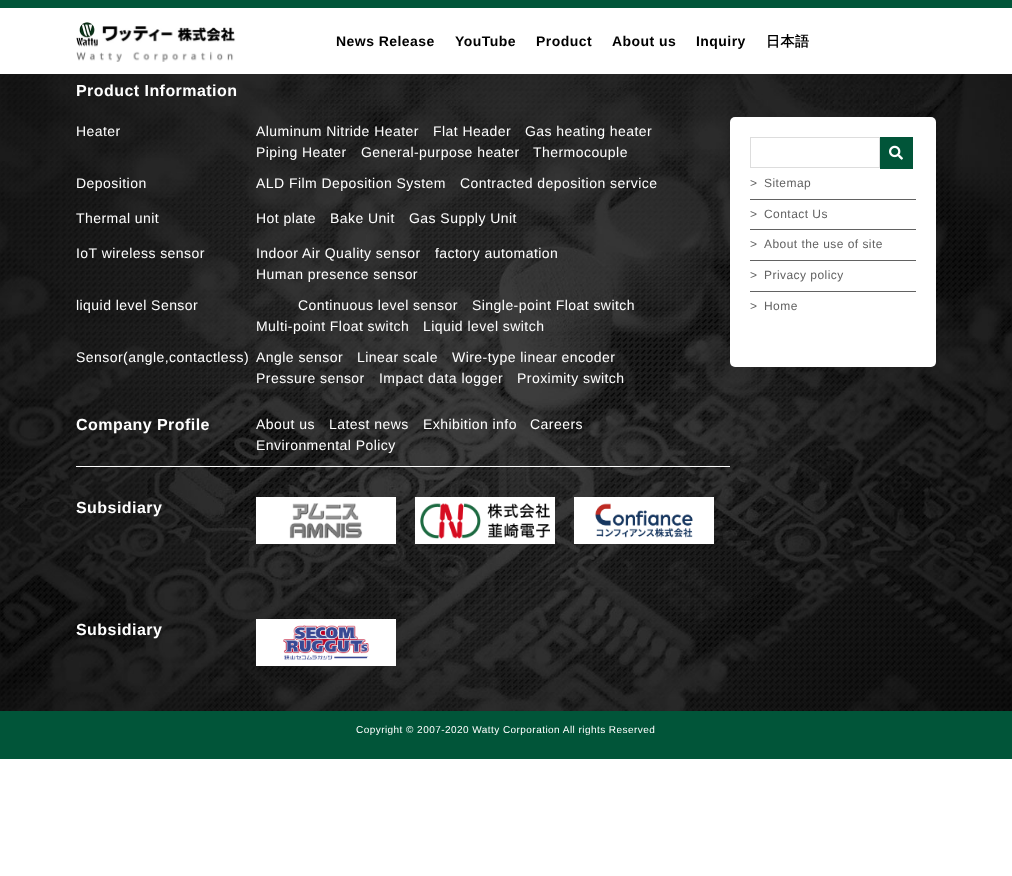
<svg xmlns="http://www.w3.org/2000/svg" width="1012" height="876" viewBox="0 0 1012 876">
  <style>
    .t1 { font: bold 14px Liberation Sans; letter-spacing: 0.45px; fill: #000; }
    .t2 { font: bold 14px WenQuanYi Zen Hei; letter-spacing: 0.45px; fill: #000; }
    .t3 { font: bold 16px Liberation Sans; letter-spacing: 0.45px; fill: #fff; }
    .t4 { font: 14px Liberation Sans; letter-spacing: 0.45px; fill: #fff; }
    .t5 { font: 12px Liberation Sans; letter-spacing: 0.45px; fill: #626262; }
    .t6 { font: 10px Liberation Sans; letter-spacing: 0.45px; fill: #fff; }
  </style>
  <rect width="100%" height="100%" fill="#fff"/>
  <rect x="0" y="0" width="1012" height="8" fill="#015539"/>
  <image x="76" y="22" width="160" height="40" href="images/1.png"/>
  <text x="336" y="46" class="t1">News Release</text>
  <text x="455" y="46" class="t1">YouTube</text>
  <text x="536" y="46" class="t1">Product</text>
  <text x="612" y="46" class="t1">About us</text>
  <text x="696" y="46" class="t1">Inquiry</text>
  <text x="766" y="46" class="t2">日本語</text>
  <image x="0" y="74" width="1012" height="637" href="images/2.png"/>
  <rect x="76" y="466" width="654" height="1" fill="#fff"/>
  <text x="76" y="96" class="t3">Product Information</text>
  <text x="76" y="136" class="t4">Heater</text>
  <text x="256" y="136" class="t4">Aluminum Nitride Heater</text>
  <text x="433" y="136" class="t4">Flat Header</text>
  <text x="525" y="136" class="t4">Gas heating heater</text>
  <text x="256" y="157" class="t4">Piping Heater</text>
  <text x="361" y="157" class="t4">General-purpose heater</text>
  <text x="533" y="157" class="t4">Thermocouple</text>
  <text x="76" y="188" class="t4">Deposition</text>
  <text x="256" y="188" class="t4">ALD Film Deposition System</text>
  <text x="460" y="188" class="t4">Contracted deposition service</text>
  <text x="76" y="223" class="t4">Thermal unit</text>
  <text x="256" y="223" class="t4">Hot plate</text>
  <text x="330" y="223" class="t4">Bake Unit</text>
  <text x="409" y="223" class="t4">Gas Supply Unit</text>
  <text x="76" y="258" class="t4">IoT wireless sensor</text>
  <text x="256" y="258" class="t4">Indoor Air Quality sensor</text>
  <text x="435" y="258" class="t4">factory automation</text>
  <text x="256" y="279" class="t4">Human presence sensor</text>
  <text x="76" y="310" class="t4">liquid level Sensor</text>
  <text x="298" y="310" class="t4">Continuous level sensor</text>
  <text x="472" y="310" class="t4">Single-point Float switch</text>
  <text x="256" y="331" class="t4">Multi-point Float switch</text>
  <text x="423" y="331" class="t4">Liquid level switch</text>
  <text x="76" y="362" class="t4">Sensor(angle,contactless)</text>
  <text x="256" y="362" class="t4">Angle sensor</text>
  <text x="357" y="362" class="t4">Linear scale</text>
  <text x="452" y="362" class="t4">Wire-type linear encoder</text>
  <text x="256" y="383" class="t4">Pressure sensor</text>
  <text x="379" y="383" class="t4">Impact data logger</text>
  <text x="517" y="383" class="t4">Proximity switch</text>
  <text x="76" y="430" class="t3">Company Profile</text>
  <text x="256" y="429" class="t4">About us</text>
  <text x="329" y="429" class="t4">Latest news</text>
  <text x="423" y="429" class="t4">Exhibition info</text>
  <text x="530" y="429" class="t4">Careers</text>
  <text x="256" y="450" class="t4">Environmental Policy</text>
  <rect x="730" y="117" width="206" height="250" rx="5" fill="#fff"/>
  <rect x="750.5" y="137.5" width="129" height="30" fill="none" stroke="#ddd"/>
  <rect x="880" y="137" width="33" height="32" fill="#015539"/>
  <image x="889" y="145" width="14" height="15" href="images/3.png"/>
  <rect x="750" y="199" width="166" height="1" fill="#626262"/>
  <text x="750" y="187" class="t5">&gt;</text>
  <text x="764" y="187" class="t5">Sitemap</text>
  <rect x="750" y="229" width="166" height="1" fill="#626262"/>
  <text x="750" y="218" class="t5">&gt;</text>
  <text x="764" y="218" class="t5">Contact Us</text>
  <rect x="750" y="260" width="166" height="1" fill="#626262"/>
  <text x="750" y="248" class="t5">&gt;</text>
  <text x="764" y="248" class="t5">About the use of site</text>
  <rect x="750" y="291" width="166" height="1" fill="#626262"/>
  <text x="750" y="279" class="t5">&gt;</text>
  <text x="764" y="279" class="t5">Privacy policy</text>
  <text x="750" y="310" class="t5">&gt;</text>
  <text x="764" y="310" class="t5">Home</text>
  <text x="76" y="513" class="t3">Subsidiary</text>
  <rect x="256" y="497" width="140" height="47" fill="#fff"/>
  <image x="289" y="503" width="74" height="36" href="images/4.png"/>
  <rect x="415" y="497" width="140" height="47" fill="#fff"/>
  <image x="420" y="503" width="130" height="36" href="images/5.png"/>
  <rect x="574" y="497" width="140" height="47" fill="#fff"/>
  <image x="595" y="503" width="98" height="35" href="images/6.png"/>
  <text x="76" y="635" class="t3">Subsidiary</text>
  <rect x="256" y="619" width="140" height="47" fill="#fff"/>
  <image x="283" y="625" width="87" height="35" href="images/7.png"/>
  <rect x="0" y="711" width="1012" height="48" fill="#015539"/>
  <text x="356" y="733" class="t6">Copyright © 2007-2020 Watty Corporation All rights Reserved</text>
</svg>
